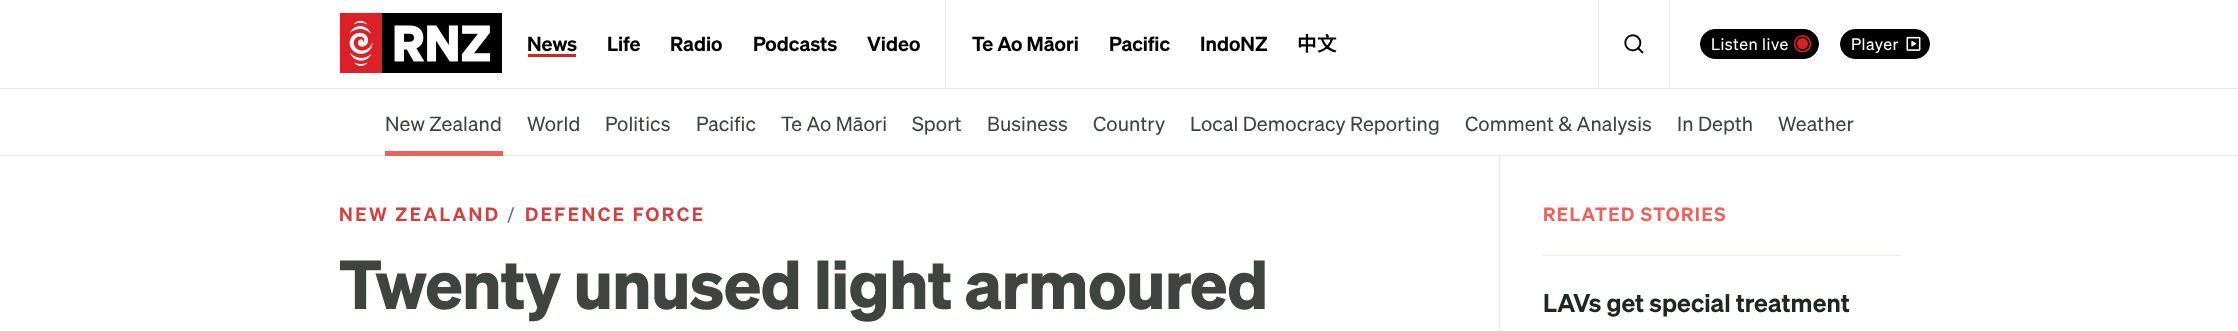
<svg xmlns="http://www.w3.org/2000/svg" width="2238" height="331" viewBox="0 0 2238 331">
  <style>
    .t1 { font: 600 20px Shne; fill: #000; }
    .t2 { font: 600 20px Noto Sans SC; fill: #000; }
    .t3 { font: 16.25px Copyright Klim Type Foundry; letter-spacing: 0.5px; fill: #fff; }
    .t4 { font: 20px Copyright Klim Type Foundry; letter-spacing: 0.1px; fill: #404441; }
    .t5 { font: 600 18.75px Shne; letter-spacing: 2.5px; fill: #d24141; }
    .t6 { font: 18.75px Copyright Klim Type Foundry; letter-spacing: 2.5px; fill: #6d7570; }
    .t7 { font: bold 67.5px Copyright Klim Type Foundry; letter-spacing: -0.55px; fill: #404441; }
    .t8 { font: 600 18.75px Shne; letter-spacing: 1.5px; fill: #ed615a; }
    .t9 { font: 600 25px Shne; letter-spacing: 0.1px; fill: #1e2722; }
  </style>
  <rect width="100%" height="100%" fill="#fff"/>
  <rect x="0" y="88" width="2238" height="1" fill="#e8e8e8"/>
  <image x="340" y="13" width="162" height="60" href="images/1.png"/>
  <text x="527" y="51" class="t1">News</text>
  <rect x="528" y="54" width="48" height="3" fill="#da2128"/>
  <text x="607" y="51" class="t1">Life</text>
  <text x="670" y="51" class="t1">Radio</text>
  <text x="753" y="51" class="t1">Podcasts</text>
  <text x="867" y="51" class="t1">Video</text>
  <rect x="945" y="0" width="1" height="88" fill="#e8e8e8"/>
  <text x="972" y="51" class="t1">Te Ao Māori</text>
  <text x="1109" y="51" class="t1">Pacific</text>
  <text x="1200" y="51" class="t1">IndoNZ</text>
  <text x="1297" y="51" class="t2">中文</text>
  <rect x="1598" y="0" width="1" height="88" fill="#e8e8e8"/>
  <image x="1624" y="34" width="20" height="20" href="images/2.png"/>
  <rect x="1669" y="0" width="1" height="88" fill="#e8e8e8"/>
  <rect x="1700.5" y="29.5" width="118" height="29" rx="14.5" fill="#000" stroke="#000"/>
  <text x="1711" y="50" class="t3">Listen live</text>
  <image x="1793" y="35" width="19" height="18" href="images/3.png"/>
  <rect x="1840.5" y="29.5" width="89" height="29" rx="14.5" fill="#000" stroke="#000"/>
  <text x="1851" y="50" class="t3">Player</text>
  <image x="1906" y="36" width="15" height="15" href="images/4.png"/>
  <text x="385" y="131" class="t4">New Zealand</text>
  <rect x="0" y="155" width="2238" height="1" fill="#ebeae6"/>
  <rect x="385" y="151" width="118" height="5" fill="#ed615a"/>
  <text x="527" y="131" class="t4">World</text>
  <text x="605" y="131" class="t4">Politics</text>
  <text x="696" y="131" class="t4">Pacific</text>
  <text x="781" y="131" class="t4">Te Ao Māori</text>
  <text x="912" y="131" class="t4">Sport</text>
  <text x="987" y="131" class="t4">Business</text>
  <text x="1093" y="131" class="t4">Country</text>
  <text x="1190" y="131" class="t4">Local Democracy Reporting</text>
  <text x="1465" y="131" class="t4">Comment &amp; Analysis</text>
  <text x="1677" y="131" class="t4">In Depth</text>
  <text x="1778" y="131" class="t4">Weather</text>
  <text x="339" y="221" class="t5">NEW ZEALAND</text>
  <text x="507" y="221" class="t6">/</text>
  <text x="525" y="221" class="t5">DEFENCE FORCE</text>
  <text x="339" y="309" class="t7">Twenty unused light armoured</text>
  <rect x="1499" y="156" width="1" height="175" fill="#ebeae6"/>
  <text x="1543" y="221" class="t8">RELATED STORIES</text>
  <rect x="1543" y="255" width="357" height="1" fill="#ecebe6"/>
  <text x="1543" y="312" class="t9">LAVs get special treatment</text>
</svg>
